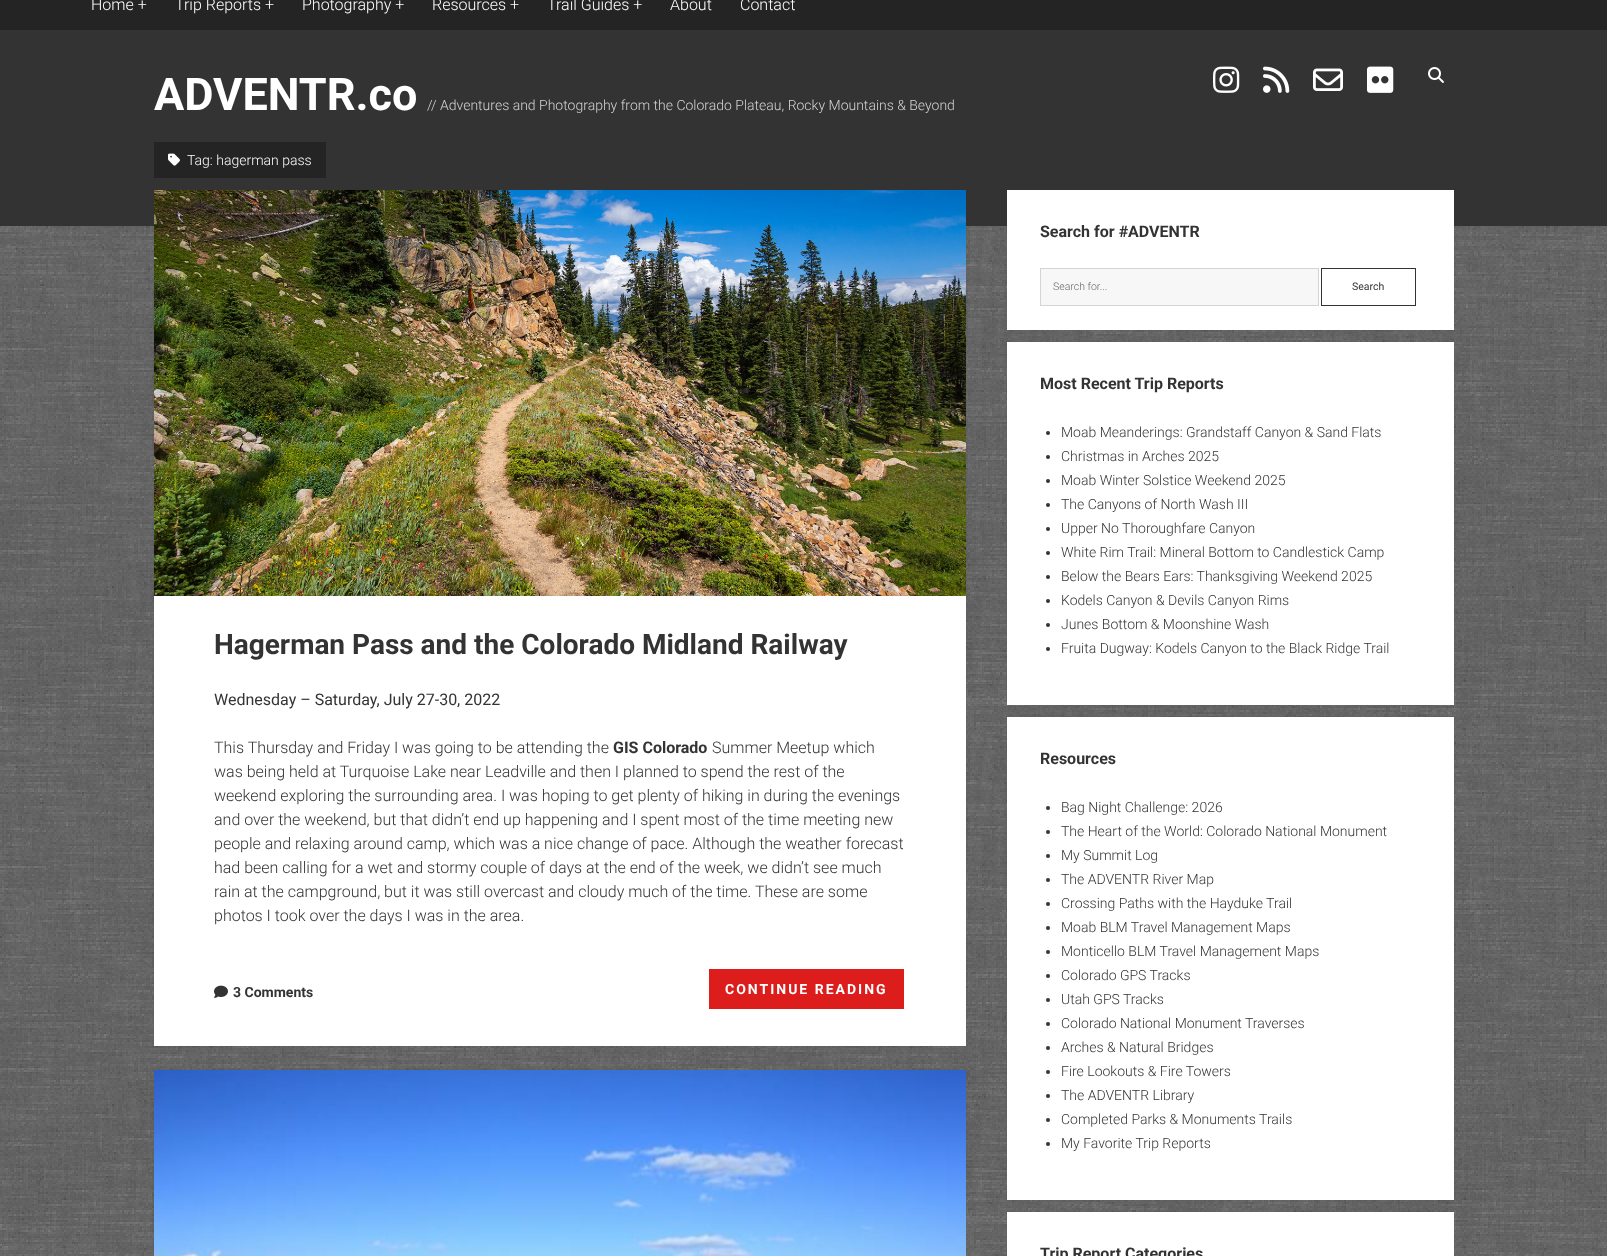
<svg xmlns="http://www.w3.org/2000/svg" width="1607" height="1256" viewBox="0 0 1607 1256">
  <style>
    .t1 { font: 300 16px Roboto; fill: #fff; }
    .t2 { font: bold 45px Roboto; fill: #fff; }
    .t3 { font: 300 14px Roboto; fill: #d4d4d4; }
    .t4 { font: 300 14px Roboto; fill: #fff; }
    .t5 { font: bold 28px Roboto; fill: #333; }
    .t6 { font: 16px Roboto; fill: #333; }
    .t7 { font: 300 16px Roboto; fill: #333; }
    .t8 { font: bold 16px Roboto; fill: #333; }
    .t9 { font: bold 14px Roboto; fill: #333; }
    .t10 { font: bold 14px Roboto; letter-spacing: 2px; fill: #fff; }
    .t11 { font: 300 10.5px Roboto; fill: #666; }
    .t12 { font: 10.5px Roboto; fill: #333; }
    .t13 { font: 300 14px Roboto; fill: #333; }
  </style>
  <rect width="100%" height="100%" fill="#fff"/>
  <image x="0" y="226" width="1607" height="1030" href="images/1.png"/>
  <rect x="0" y="0" width="1607" height="30" fill="#242424"/>
  <text x="91" y="10" class="t1">Home +</text>
  <text x="175" y="10" class="t1">Trip Reports +</text>
  <text x="302" y="10" class="t1">Photography +</text>
  <text x="432" y="10" class="t1">Resources +</text>
  <text x="547" y="10" class="t1">Trail Guides +</text>
  <text x="670" y="10" class="t1">About</text>
  <text x="740" y="10" class="t1">Contact</text>
  <rect x="0" y="30" width="1607" height="196" fill="#333"/>
  <text x="154" y="110" class="t2">ADVENTR.co</text>
  <text x="427" y="110" class="t3">// Adventures and Photography from the Colorado Plateau, Rocky Mountains &amp; Beyond</text>
  <image x="1213" y="66" width="27" height="27" href="images/2.png"/>
  <image x="1263" y="66" width="27" height="27" href="images/3.png"/>
  <image x="1313" y="68" width="30" height="23" href="images/4.png"/>
  <image x="1367" y="66" width="27" height="27" href="images/5.png"/>
  <image x="1428" y="67" width="16" height="16" href="images/6.png"/>
  <rect x="154" y="142" width="172" height="36" fill="#242424"/>
  <image x="168" y="153" width="12" height="13" href="images/7.png"/>
  <text x="187" y="165" class="t4">Tag: hagerman pass</text>
  <rect x="154" y="190" width="812" height="856" fill="#3a3a3a33" filter="blur(1px)"/>
  <rect x="154" y="596" width="812" height="450" fill="#fff"/>
  <image x="154" y="190" width="812" height="406" href="images/8.png"/>
  <text x="214" y="654" class="t5">Hagerman Pass and the Colorado Midland Railway</text>
  <text x="214" y="705" class="t6">Wednesday – Saturday, July 27-30, 2022</text>
  <text x="214" y="753" class="t7">This Thursday and Friday I was going to be attending the</text>
  <text x="613" y="753" class="t8">GIS Colorado</text>
  <text x="712" y="753" class="t7">Summer Meetup which</text>
  <text x="214" y="777" class="t7">was being held at Turquoise Lake near Leadville and then I planned to spend the rest of the</text>
  <text x="214" y="801" class="t7">weekend exploring the surrounding area. I was hoping to get plenty of hiking in during the evenings</text>
  <text x="214" y="825" class="t7">and over the weekend, but that didn’t end up happening and I spent most of the time meeting new</text>
  <text x="214" y="849" class="t7">people and relaxing around camp, which was a nice change of pace. Although the weather forecast</text>
  <text x="214" y="873" class="t7">had been calling for a wet and stormy couple of days at the end of the week, we didn’t see much</text>
  <text x="214" y="897" class="t7">rain at the campground, but it was still overcast and cloudy much of the time. These are some</text>
  <text x="214" y="921" class="t7">photos I took over the days I was in the area.</text>
  <image x="214" y="985" width="14" height="13" href="images/9.png"/>
  <text x="233" y="997" class="t9">3 Comments</text>
  <rect x="709" y="969" width="195" height="40" fill="#dd1c1c"/>
  <text x="725" y="994" class="t10">CONTINUE READING</text>
  <rect x="154" y="1070" width="812" height="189" fill="#3a3a3a33" filter="blur(1px)"/>
  <image x="154" y="1070" width="812" height="186" href="images/10.png"/>
  <rect x="1007" y="190" width="447" height="140" fill="#3a3a3a33" filter="blur(1px)"/>
  <rect x="1007" y="190" width="447" height="140" fill="#fff"/>
  <text x="1040" y="237" class="t8">Search for #ADVENTR</text>
  <rect x="1040.5" y="268.5" width="278" height="37" fill="#f7f7f7" stroke="#d4d4d4"/>
  <text x="1053" y="290" class="t11">Search for...</text>
  <rect x="1321.5" y="268.5" width="94" height="37" fill="none" stroke="#333"/>
  <text x="1352" y="290" class="t12">Search</text>
  <rect x="1007" y="342" width="447" height="363" fill="#3a3a3a33" filter="blur(1px)"/>
  <rect x="1007" y="342" width="447" height="363" fill="#fff"/>
  <text x="1040" y="389" class="t8">Most Recent Trip Reports</text>
  <circle cx="1048" cy="433" r="2" fill="#333"/>
  <text x="1061" y="437" class="t13">Moab Meanderings: Grandstaff Canyon &amp; Sand Flats</text>
  <circle cx="1048" cy="457" r="2" fill="#333"/>
  <text x="1061" y="461" class="t13">Christmas in Arches 2025</text>
  <circle cx="1048" cy="481" r="2" fill="#333"/>
  <text x="1061" y="485" class="t13">Moab Winter Solstice Weekend 2025</text>
  <circle cx="1048" cy="505" r="2" fill="#333"/>
  <text x="1061" y="509" class="t13">The Canyons of North Wash III</text>
  <circle cx="1048" cy="529" r="2" fill="#333"/>
  <text x="1061" y="533" class="t13">Upper No Thoroughfare Canyon</text>
  <circle cx="1048" cy="553" r="2" fill="#333"/>
  <text x="1061" y="557" class="t13">White Rim Trail: Mineral Bottom to Candlestick Camp</text>
  <circle cx="1048" cy="577" r="2" fill="#333"/>
  <text x="1061" y="581" class="t13">Below the Bears Ears: Thanksgiving Weekend 2025</text>
  <circle cx="1048" cy="601" r="2" fill="#333"/>
  <text x="1061" y="605" class="t13">Kodels Canyon &amp; Devils Canyon Rims</text>
  <circle cx="1048" cy="625" r="2" fill="#333"/>
  <text x="1061" y="629" class="t13">Junes Bottom &amp; Moonshine Wash</text>
  <circle cx="1048" cy="649" r="2" fill="#333"/>
  <text x="1061" y="653" class="t13">Fruita Dugway: Kodels Canyon to the Black Ridge Trail</text>
  <rect x="1007" y="717" width="447" height="483" fill="#3a3a3a33" filter="blur(1px)"/>
  <rect x="1007" y="717" width="447" height="483" fill="#fff"/>
  <text x="1040" y="764" class="t8">Resources</text>
  <circle cx="1048" cy="808" r="2" fill="#333"/>
  <text x="1061" y="812" class="t13">Bag Night Challenge: 2026</text>
  <circle cx="1048" cy="832" r="2" fill="#333"/>
  <text x="1061" y="836" class="t13">The Heart of the World: Colorado National Monument</text>
  <circle cx="1048" cy="856" r="2" fill="#333"/>
  <text x="1061" y="860" class="t13">My Summit Log</text>
  <circle cx="1048" cy="880" r="2" fill="#333"/>
  <text x="1061" y="884" class="t13">The ADVENTR River Map</text>
  <circle cx="1048" cy="904" r="2" fill="#333"/>
  <text x="1061" y="908" class="t13">Crossing Paths with the Hayduke Trail</text>
  <circle cx="1048" cy="928" r="2" fill="#333"/>
  <text x="1061" y="932" class="t13">Moab BLM Travel Management Maps</text>
  <circle cx="1048" cy="952" r="2" fill="#333"/>
  <text x="1061" y="956" class="t13">Monticello BLM Travel Management Maps</text>
  <circle cx="1048" cy="976" r="2" fill="#333"/>
  <text x="1061" y="980" class="t13">Colorado GPS Tracks</text>
  <circle cx="1048" cy="1000" r="2" fill="#333"/>
  <text x="1061" y="1004" class="t13">Utah GPS Tracks</text>
  <circle cx="1048" cy="1024" r="2" fill="#333"/>
  <text x="1061" y="1028" class="t13">Colorado National Monument Traverses</text>
  <circle cx="1048" cy="1048" r="2" fill="#333"/>
  <text x="1061" y="1052" class="t13">Arches &amp; Natural Bridges</text>
  <circle cx="1048" cy="1072" r="2" fill="#333"/>
  <text x="1061" y="1076" class="t13">Fire Lookouts &amp; Fire Towers</text>
  <circle cx="1048" cy="1096" r="2" fill="#333"/>
  <text x="1061" y="1100" class="t13">The ADVENTR Library</text>
  <circle cx="1048" cy="1120" r="2" fill="#333"/>
  <text x="1061" y="1124" class="t13">Completed Parks &amp; Monuments Trails</text>
  <circle cx="1048" cy="1144" r="2" fill="#333"/>
  <text x="1061" y="1148" class="t13">My Favorite Trip Reports</text>
  <rect x="1007" y="1212" width="447" height="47" fill="#3a3a3a33" filter="blur(1px)"/>
  <rect x="1007" y="1212" width="447" height="44" fill="#fff"/>
  <text x="1040" y="1259" class="t8">Trip Report Categories</text>
</svg>
